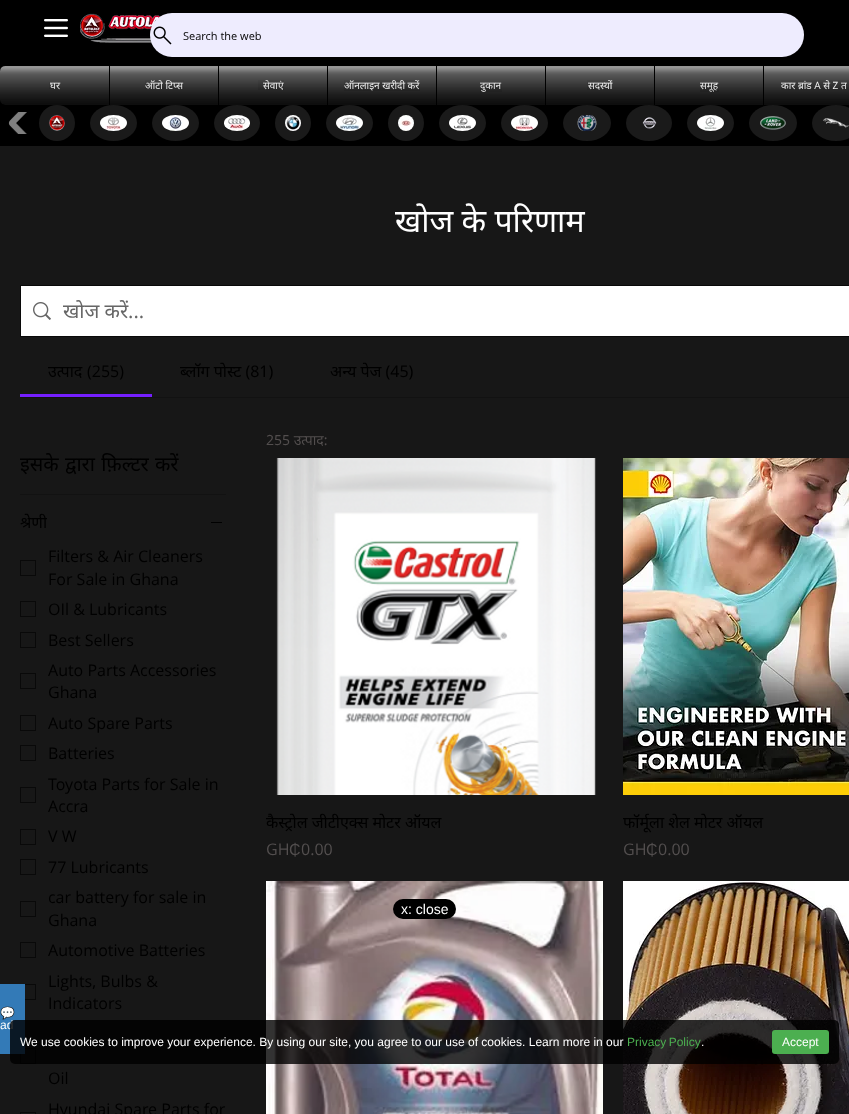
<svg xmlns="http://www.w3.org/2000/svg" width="849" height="1114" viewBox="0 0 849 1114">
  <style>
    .t1 { font: 11px Open Sans; fill: #000; }
    .t2 { font: 10px Noto Sans; fill: #fff; }
    .t3 { font: 32px Noto Sans; fill: #fff; }
    .t4 { font: 20px Noto Sans; fill: #666; }
    .t5 { font: 16px Noto Sans; fill: #000; }
    .t6 { font: 16px Open Sans; fill: #000; }
    .t7 { font: 20px Noto Sans; fill: #000; }
    .t8 { font: 14px Noto Sans; fill: #524e4e; }
    .t9 { font: 16px Open Sans; fill: #524e4e; }
    .t10 { font: 16px Liberation Sans; fill: #524e4e; }
    .t11 { font: 14px Liberation Sans; fill: #fff; }
    .t12 { font: 12px Noto Color Emoji; fill: #fff; }
    .t13 { font: 12px Liberation Sans; fill: #fff; }
    .t14 { font: 12px Liberation Sans; fill: #4caf50; }
  </style>
  <defs>
    <clipPath id="clip1"><rect x="63" y="297" width="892" height="27"/></clipPath>
    <clipPath id="clip2"><rect x="20" y="511" width="27" height="22"/></clipPath>
  </defs>
  <rect width="100%" height="100%" fill="#171717"/>
  <rect x="0" y="0" width="849" height="146" fill="#000"/>
  <image x="44" y="19" width="24" height="18" href="images/1.png"/>
  <image x="80" y="13" width="83" height="30" href="images/2.png"/>
  <rect x="150" y="13" width="654" height="44" rx="22" fill="#eeecfe"/>
  <image x="153" y="26" width="19" height="19" href="images/3.png"/>
  <text x="183" y="40" class="t1">Search the web</text>
  <image x="0" y="66" width="5" height="39" href="images/4.png"/>
  <path d="M5 66H109V105H5C2 105 0 103 0 100V71C0 68 2 66 5 66Z" fill="#000"/>
  <text x="50" y="89" class="t2">घर</text>
  <image x="0" y="66" width="109" height="39" href="images/5.png"/>
  <image x="49" y="82" width="11" height="7" href="images/6.png"/>
  <text x="145" y="89" class="t2">ऑटो टिप्स</text>
  <image x="110" y="66" width="108" height="39" href="images/7.png"/>
  <image x="145" y="80" width="39" height="9" href="images/8.png"/>
  <text x="263" y="89" class="t2">सेवाएं</text>
  <image x="219" y="66" width="108" height="39" href="images/9.png"/>
  <image x="258" y="80" width="26" height="10" href="images/10.png"/>
  <text x="344" y="89" class="t2">ऑनलाइन खरीदी करें</text>
  <image x="328" y="66" width="108" height="39" href="images/11.png"/>
  <image x="344" y="80" width="76" height="11" href="images/12.png"/>
  <text x="480" y="89" class="t2">दुकान</text>
  <image x="437" y="66" width="108" height="39" href="images/13.png"/>
  <image x="480" y="82" width="22" height="10" href="images/14.png"/>
  <text x="588" y="89" class="t2">सदस्यों</text>
  <image x="546" y="66" width="108" height="39" href="images/15.png"/>
  <image x="587" y="80" width="23" height="10" href="images/16.png"/>
  <text x="700" y="89" class="t2">समूह</text>
  <image x="655" y="66" width="108" height="39" href="images/17.png"/>
  <image x="700" y="82" width="19" height="10" href="images/18.png"/>
  <text x="781" y="89" class="t2">कार ब्रांड A से Z त</text>
  <image x="764" y="66" width="85" height="39" href="images/19.png"/>
  <image x="781" y="80" width="68" height="10" href="images/20.png"/>
  <image x="8" y="112" width="19" height="22" href="images/21.png"/>
  <circle cx="57" cy="123" r="18" fill="#1a1a1a"/>
  <image x="49" y="115" width="16" height="16" href="images/22.png"/>
  <ellipse cx="113.5" cy="123" rx="23.5" ry="18" fill="#1a1a1a"/>
  <image x="100" y="115" width="27" height="16" href="images/23.png"/>
  <ellipse cx="175.5" cy="123" rx="23.5" ry="18" fill="#1a1a1a"/>
  <image x="162" y="115" width="27" height="16" href="images/24.png"/>
  <ellipse cx="237" cy="123" rx="23" ry="18" fill="#1a1a1a"/>
  <image x="224" y="115" width="26" height="16" href="images/25.png"/>
  <circle cx="293" cy="123" r="18" fill="#1a1a1a"/>
  <image x="285" y="115" width="16" height="16" href="images/26.png"/>
  <ellipse cx="349.5" cy="123" rx="23.5" ry="18" fill="#1a1a1a"/>
  <image x="336" y="115" width="27" height="16" href="images/27.png"/>
  <circle cx="406" cy="123" r="18" fill="#1a1a1a"/>
  <image x="398" y="115" width="16" height="16" href="images/28.png"/>
  <ellipse cx="462.5" cy="123" rx="23.5" ry="18" fill="#1a1a1a"/>
  <image x="449" y="115" width="27" height="16" href="images/29.png"/>
  <ellipse cx="524.5" cy="123" rx="23.5" ry="18" fill="#1a1a1a"/>
  <image x="511" y="115" width="27" height="16" href="images/30.png"/>
  <ellipse cx="587" cy="123" rx="24" ry="18" fill="#1a1a1a"/>
  <image x="577" y="115" width="20" height="16" href="images/31.png"/>
  <ellipse cx="649" cy="123" rx="23" ry="18" fill="#1a1a1a"/>
  <image x="642" y="117" width="15" height="12" href="images/32.png"/>
  <ellipse cx="710.5" cy="123" rx="23.5" ry="18" fill="#1a1a1a"/>
  <image x="697" y="115" width="27" height="16" href="images/33.png"/>
  <ellipse cx="773" cy="123" rx="24" ry="18" fill="#1a1a1a"/>
  <image x="760" y="116" width="26" height="14" href="images/34.png"/>
  <ellipse cx="836" cy="123" rx="24" ry="18" fill="#1a1a1a"/>
  <image x="823" y="118" width="26" height="10" href="images/35.png"/>
  <text x="395" y="232" class="t3">खोज के परिणाम</text>
  <rect x="20.5" y="285.5" width="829" height="51" fill="#fff" stroke="#090909"/>
  <image x="33" y="302" width="18" height="18" href="images/36.png"/>
  <g clip-path="url(#clip1)">
    <text x="63" y="318" class="t4">खोज करें...</text>
  </g>
  <rect x="20" y="397" width="829" height="1" fill="#121212"/>
  <rect x="20" y="394" width="132" height="3" fill="#751fff"/>
  <text x="48" y="377" class="t5">उत्पाद</text>
  <text x="87" y="377" class="t6">(255)</text>
  <text x="180" y="377" class="t5">ब्लॉग पोस्ट (81)</text>
  <text x="330" y="377" class="t5">अन्य पेज (45)</text>
  <rect x="20" y="494" width="206" height="1" fill="#121212"/>
  <text x="20" y="471" word-spacing="1" class="t7">इसके द्वारा फ़िल्टर करें</text>
  <g clip-path="url(#clip2)">
    <text x="20" y="528" class="t5">श्रेणी</text>
  </g>
  <rect x="211" y="522" width="11" height="1" fill="#000"/>
  <rect x="20.5" y="560.5" width="15" height="15" fill="none" stroke="#090909"/>
  <text x="48" y="562" class="t6">Filters &amp; Air Cleaners</text>
  <text x="48" y="585" class="t6">For Sale in Ghana</text>
  <rect x="20.5" y="601.5" width="15" height="15" fill="none" stroke="#090909"/>
  <text x="48" y="615" class="t6">OIl &amp; Lubricants</text>
  <rect x="20.5" y="632.5" width="15" height="15" fill="none" stroke="#090909"/>
  <text x="48" y="646" class="t6">Best Sellers</text>
  <rect x="20.5" y="673.5" width="15" height="15" fill="none" stroke="#090909"/>
  <text x="48" y="676" class="t6">Auto Parts Accessories</text>
  <text x="48" y="698" class="t6">Ghana</text>
  <rect x="20.5" y="715.5" width="15" height="15" fill="none" stroke="#090909"/>
  <text x="48" y="729" class="t6">Auto Spare Parts</text>
  <rect x="20.5" y="745.5" width="15" height="15" fill="none" stroke="#090909"/>
  <text x="48" y="759" class="t6">Batteries</text>
  <rect x="20.5" y="787.5" width="15" height="15" fill="none" stroke="#090909"/>
  <text x="48" y="790" class="t6">Toyota Parts for Sale in</text>
  <text x="48" y="812" class="t6">Accra</text>
  <rect x="20.5" y="829.5" width="15" height="15" fill="none" stroke="#090909"/>
  <text x="48" y="842" class="t6">V W</text>
  <rect x="20.5" y="859.5" width="15" height="15" fill="none" stroke="#090909"/>
  <text x="48" y="873" class="t6">77 Lubricants</text>
  <rect x="20.5" y="901.5" width="15" height="15" fill="none" stroke="#090909"/>
  <text x="48" y="903" class="t6">car battery for sale in</text>
  <text x="48" y="926" class="t6">Ghana</text>
  <rect x="20.5" y="942.5" width="15" height="15" fill="none" stroke="#090909"/>
  <text x="48" y="956" class="t6">Automotive Batteries</text>
  <rect x="20.5" y="984.5" width="15" height="15" fill="none" stroke="#090909"/>
  <text x="48" y="987" class="t6">Lights, Bulbs &amp;</text>
  <text x="48" y="1009" class="t6">Indicators</text>
  <rect x="20.5" y="1048.5" width="15" height="15" fill="none" stroke="#090909"/>
  <text x="48" y="1084" class="t6">Oil</text>
  <rect x="20.5" y="1112.5" width="15" height="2" fill="none" stroke="#090909"/>
  <text x="48" y="1115" class="t6">Hyundai Spare Parts for</text>
  <text x="266" y="445" class="t8">255 उत्पाद:</text>
  <image x="276" y="458" width="320" height="337" href="images/37.png"/>
  <text x="266" y="828" class="t5">कैस्ट्रोल जीटीएक्स मोटर ऑयल</text>
  <text x="266" y="855" class="t9">GH</text>
  <text x="289" y="855" class="t10">₵</text>
  <text x="301" y="855" class="t9">0.00</text>
  <image x="623" y="458" width="226" height="337" href="images/38.png"/>
  <text x="623" y="828" class="t5">फॉर्मूला शेल मोटर ऑयल</text>
  <text x="623" y="855" class="t9">GH</text>
  <text x="646" y="855" class="t10">₵</text>
  <text x="658" y="855" class="t9">0.00</text>
  <image x="266" y="881" width="337" height="233" href="images/39.png"/>
  <image x="623" y="881" width="226" height="233" href="images/40.png"/>
  <rect x="393" y="899" width="63" height="20" rx="10" fill="#000"/>
  <text x="401" y="914" class="t11">x: close</text>
  <rect x="0" y="984" width="25" height="70" fill="#337ab7"/>
  <text x="0" y="1017" class="t12">💬</text>
  <text x="0" y="1029" class="t13">ad</text>
  <rect x="10" y="1020" width="829" height="44" rx="5" fill="#000000cc"/>
  <text x="20" y="1046" class="t13">We use cookies to improve your experience. By using our site, you agree to our use of cookies. Learn more in our</text>
  <text x="627" y="1046" word-spacing="-1" class="t14">Privacy Policy</text>
  <text x="701" y="1046" class="t13">.</text>
  <rect x="772" y="1030" width="57" height="24" rx="3" fill="#4caf50"/>
  <text x="782" y="1046" class="t13">Accept</text>
</svg>
